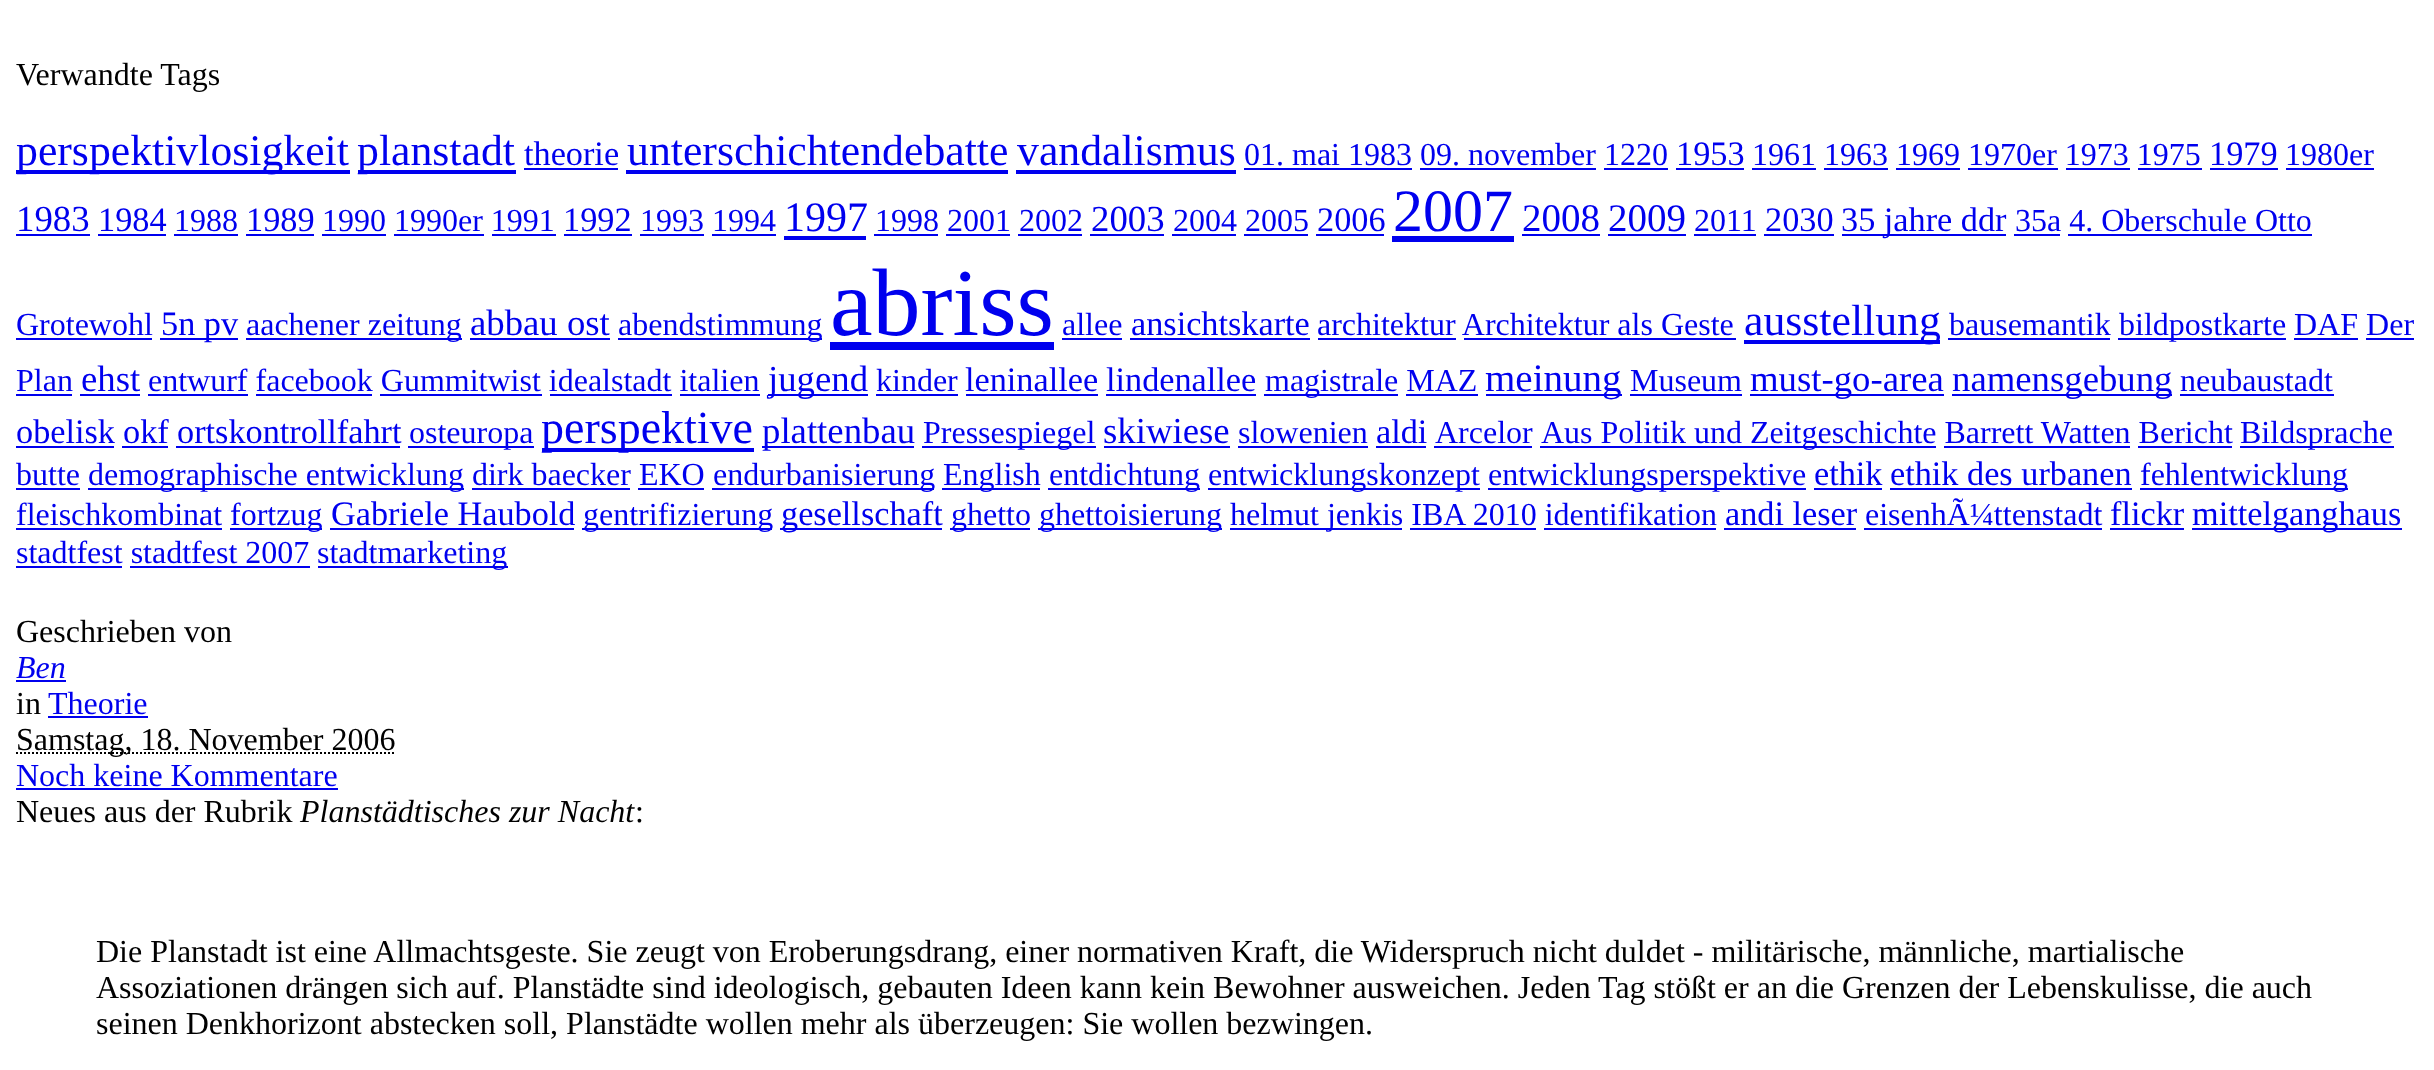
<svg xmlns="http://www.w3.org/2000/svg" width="2434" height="1070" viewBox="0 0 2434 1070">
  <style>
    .t1 { font: 32px Liberation Serif; fill: #000; }
    .t2 { font: 43.75px Liberation Serif; fill: #00e; }
    .t3 { font: 34.25px Liberation Serif; fill: #00e; }
    .t4 { font: 32px Liberation Serif; fill: #00e; }
    .t5 { font: 36.75px Liberation Serif; fill: #00e; }
    .t6 { font: 42px Liberation Serif; fill: #00e; }
    .t7 { font: 60px Liberation Serif; fill: #00e; }
    .t8 { font: 39px Liberation Serif; fill: #00e; }
    .t9 { font: 96px Liberation Serif; fill: #00e; }
    .t10 { font: 46px Liberation Serif; fill: #00e; }
    .t11 { font: italic 32px Liberation Serif; fill: #00e; }
    .t12 { font: italic 32px Liberation Serif; fill: #000; }
  </style>
  <rect width="100%" height="100%" fill="#fff"/>
  <text x="16" y="85" class="t1">Verwandte Tags</text>
  <rect x="16" y="170" width="334" height="4" fill="#00e"/>
  <text x="16" y="165" class="t2">perspektivlosigkeit</text>
  <rect x="358" y="170" width="158" height="4" fill="#00e"/>
  <text x="357" y="165" class="t2">planstadt</text>
  <text x="524" y="165" class="t3">theorie</text>
  <rect x="524" y="168" width="94" height="2" fill="#00e"/>
  <text x="627" y="165" class="t2">unterschichtendebatte</text>
  <rect x="626" y="170" width="382" height="4" fill="#00e"/>
  <text x="1017" y="165" class="t2">vandalismus</text>
  <rect x="1016" y="170" width="220" height="4" fill="#00e"/>
  <text x="1244" y="165" class="t4">01. mai 1983 09. november 1220</text>
  <rect x="1244" y="168" width="168" height="2" fill="#00e"/>
  <text x="1676" y="165" class="t3">1953</text>
  <rect x="1676" y="168" width="68" height="2" fill="#00e"/>
  <text x="1752" y="165" class="t4">1961 1963 1969 1970er 1973 1975</text>
  <rect x="1752" y="168" width="64" height="2" fill="#00e"/>
  <text x="2209" y="165" class="t3">1979</text>
  <rect x="2210" y="168" width="68" height="2" fill="#00e"/>
  <text x="2285" y="165" class="t4">1980er</text>
  <rect x="2286" y="168" width="88" height="2" fill="#00e"/>
  <rect x="1420" y="168" width="176" height="2" fill="#00e"/>
  <rect x="1604" y="168" width="64" height="2" fill="#00e"/>
  <rect x="1824" y="168" width="64" height="2" fill="#00e"/>
  <rect x="1896" y="168" width="64" height="2" fill="#00e"/>
  <rect x="1968" y="168" width="90" height="2" fill="#00e"/>
  <rect x="2066" y="168" width="64" height="2" fill="#00e"/>
  <rect x="2138" y="168" width="64" height="2" fill="#00e"/>
  <text x="16" y="231" class="t5">1983</text>
  <rect x="16" y="234" width="74" height="2" fill="#00e"/>
  <text x="98" y="231" class="t3">1984</text>
  <rect x="98" y="234" width="68" height="2" fill="#00e"/>
  <text x="174" y="231" class="t4">1988</text>
  <rect x="174" y="234" width="64" height="2" fill="#00e"/>
  <text x="246" y="231" class="t3">1989</text>
  <rect x="246" y="234" width="68" height="2" fill="#00e"/>
  <text x="322" y="231" class="t4">1990 1990er 1991</text>
  <rect x="322" y="234" width="64" height="2" fill="#00e"/>
  <text x="563" y="231" class="t3">1992</text>
  <rect x="564" y="234" width="68" height="2" fill="#00e"/>
  <text x="640" y="231" class="t4">1993 1994</text>
  <rect x="640" y="234" width="64" height="2" fill="#00e"/>
  <text x="784" y="231" class="t6">1997</text>
  <rect x="784" y="236" width="82" height="4" fill="#00e"/>
  <text x="875" y="231" class="t4">1998 2001 2002</text>
  <rect x="874" y="234" width="64" height="2" fill="#00e"/>
  <text x="1091" y="231" class="t5">2003</text>
  <rect x="1090" y="234" width="74" height="2" fill="#00e"/>
  <text x="1173" y="231" class="t4">2004 2005</text>
  <rect x="1172" y="234" width="64" height="2" fill="#00e"/>
  <text x="1317" y="231" class="t3">2006</text>
  <rect x="1316" y="234" width="68" height="2" fill="#00e"/>
  <text x="1393" y="231" class="t7">2007</text>
  <rect x="1392" y="236" width="122" height="6" fill="#00e"/>
  <text x="1522" y="231" class="t8">2008</text>
  <rect x="1522" y="234" width="78" height="2" fill="#00e"/>
  <text x="1608" y="231" class="t8">2009</text>
  <rect x="1608" y="234" width="78" height="2" fill="#00e"/>
  <text x="1694" y="231" class="t4">2011</text>
  <rect x="1694" y="234" width="62" height="2" fill="#00e"/>
  <text x="1765" y="231" class="t3">2030</text>
  <rect x="1764" y="234" width="70" height="2" fill="#00e"/>
  <rect x="1842" y="234" width="164" height="2" fill="#00e"/>
  <text x="1841" y="231" class="t3">35 jahre ddr</text>
  <text x="2015" y="231" class="t4">35a 4. Oberschule Otto</text>
  <rect x="2014" y="234" width="46" height="2" fill="#00e"/>
  <rect x="394" y="234" width="90" height="2" fill="#00e"/>
  <rect x="492" y="234" width="64" height="2" fill="#00e"/>
  <rect x="712" y="234" width="64" height="2" fill="#00e"/>
  <rect x="946" y="234" width="64" height="2" fill="#00e"/>
  <rect x="1018" y="234" width="64" height="2" fill="#00e"/>
  <rect x="1244" y="234" width="64" height="2" fill="#00e"/>
  <text x="16" y="335" class="t4">Grotewohl</text>
  <rect x="2068" y="234" width="244" height="2" fill="#00e"/>
  <rect x="16" y="338" width="136" height="2" fill="#00e"/>
  <rect x="160" y="338" width="78" height="2" fill="#00e"/>
  <text x="161" y="335" class="t3">5n pv</text>
  <rect x="246" y="338" width="216" height="2" fill="#00e"/>
  <text x="246" y="335" class="t4">aachener zeitung</text>
  <text x="470" y="335" class="t5">abbau ost</text>
  <rect x="470" y="338" width="140" height="2" fill="#00e"/>
  <rect x="618" y="338" width="204" height="2" fill="#00e"/>
  <text x="618" y="335" class="t4">abendstimmung</text>
  <text x="830" y="335" class="t9">abriss</text>
  <rect x="830" y="342" width="224" height="8" fill="#00e"/>
  <text x="1062" y="335" class="t4">allee</text>
  <rect x="1062" y="338" width="60" height="2" fill="#00e"/>
  <text x="1131" y="335" class="t3">ansichtskarte</text>
  <rect x="1130" y="338" width="180" height="2" fill="#00e"/>
  <text x="1317" y="335" class="t4">architektur Architektur als Geste</text>
  <rect x="1318" y="338" width="138" height="2" fill="#00e"/>
  <rect x="1744" y="340" width="196" height="4" fill="#00e"/>
  <text x="1744" y="335" class="t2">ausstellung</text>
  <text x="1949" y="335" class="t4">bausemantik</text>
  <rect x="1948" y="338" width="162" height="2" fill="#00e"/>
  <rect x="2118" y="338" width="168" height="2" fill="#00e"/>
  <text x="2119" y="335" class="t4">bildpostkarte DAF Der</text>
  <rect x="1464" y="338" width="272" height="2" fill="#00e"/>
  <rect x="2294" y="338" width="64" height="2" fill="#00e"/>
  <text x="16" y="391" class="t4">Plan</text>
  <rect x="2366" y="338" width="48" height="2" fill="#00e"/>
  <rect x="16" y="394" width="56" height="2" fill="#00e"/>
  <text x="81" y="391" class="t5">ehst</text>
  <rect x="80" y="394" width="60" height="2" fill="#00e"/>
  <text x="148" y="391" class="t4">entwurf facebook Gummitwist idealstadt italien</text>
  <rect x="148" y="394" width="100" height="2" fill="#00e"/>
  <rect x="768" y="394" width="100" height="2" fill="#00e"/>
  <text x="768" y="391" class="t5">jugend</text>
  <text x="876" y="391" class="t4">kinder</text>
  <rect x="876" y="394" width="82" height="2" fill="#00e"/>
  <text x="965" y="391" class="t3">leninallee</text>
  <rect x="966" y="394" width="132" height="2" fill="#00e"/>
  <text x="1106" y="391" class="t3">lindenallee</text>
  <rect x="1106" y="394" width="150" height="2" fill="#00e"/>
  <rect x="1264" y="394" width="134" height="2" fill="#00e"/>
  <text x="1265" y="391" class="t4">magistrale MAZ</text>
  <rect x="1486" y="394" width="136" height="2" fill="#00e"/>
  <text x="1485" y="391" class="t8">meinung</text>
  <text x="1630" y="391" class="t4">Museum</text>
  <rect x="1630" y="394" width="112" height="2" fill="#00e"/>
  <rect x="1750" y="394" width="194" height="2" fill="#00e"/>
  <text x="1750" y="391" class="t5">must-go-area</text>
  <rect x="1952" y="394" width="220" height="2" fill="#00e"/>
  <text x="1952" y="391" class="t5">namensgebung</text>
  <text x="2180" y="391" class="t4">neubaustadt</text>
  <rect x="2180" y="394" width="154" height="2" fill="#00e"/>
  <rect x="256" y="394" width="116" height="2" fill="#00e"/>
  <rect x="380" y="394" width="162" height="2" fill="#00e"/>
  <rect x="550" y="394" width="122" height="2" fill="#00e"/>
  <rect x="680" y="394" width="80" height="2" fill="#00e"/>
  <rect x="1406" y="394" width="72" height="2" fill="#00e"/>
  <text x="16" y="443" class="t3">obelisk</text>
  <rect x="16" y="446" width="98" height="2" fill="#00e"/>
  <text x="123" y="443" class="t3">okf</text>
  <rect x="122" y="446" width="46" height="2" fill="#00e"/>
  <text x="177" y="443" class="t3">ortskontrollfahrt</text>
  <rect x="176" y="446" width="224" height="2" fill="#00e"/>
  <rect x="408" y="446" width="126" height="2" fill="#00e"/>
  <text x="409" y="443" class="t4">osteuropa</text>
  <rect x="542" y="448" width="212" height="4" fill="#00e"/>
  <text x="541" y="443" class="t10">perspektive</text>
  <rect x="762" y="446" width="152" height="2" fill="#00e"/>
  <text x="762" y="443" class="t5">plattenbau</text>
  <rect x="922" y="446" width="174" height="2" fill="#00e"/>
  <text x="923" y="443" class="t4">Pressespiegel</text>
  <text x="1103" y="443" class="t5">skiwiese</text>
  <rect x="1104" y="446" width="126" height="2" fill="#00e"/>
  <text x="1238" y="443" class="t4">slowenien</text>
  <rect x="1238" y="446" width="130" height="2" fill="#00e"/>
  <text x="1376" y="443" class="t3">aldi</text>
  <rect x="1376" y="446" width="50" height="2" fill="#00e"/>
  <text x="1435" y="443" class="t4">Arcelor</text>
  <rect x="1434" y="446" width="98" height="2" fill="#00e"/>
  <rect x="1540" y="446" width="396" height="2" fill="#00e"/>
  <text x="1541" y="443" class="t4">Aus Politik und Zeitgeschichte Barrett Watten Bericht</text>
  <rect x="2240" y="446" width="154" height="2" fill="#00e"/>
  <text x="2240" y="443" class="t4">Bildsprache</text>
  <rect x="1944" y="446" width="186" height="2" fill="#00e"/>
  <rect x="2138" y="446" width="94" height="2" fill="#00e"/>
  <text x="16" y="485" class="t4">butte</text>
  <rect x="16" y="488" width="64" height="2" fill="#00e"/>
  <rect x="88" y="488" width="376" height="2" fill="#00e"/>
  <text x="88" y="485" class="t4">demographische entwicklung dirk baecker EKO</text>
  <rect x="712" y="488" width="222" height="2" fill="#00e"/>
  <text x="713" y="485" class="t4">endurbanisierung</text>
  <rect x="942" y="488" width="98" height="2" fill="#00e"/>
  <text x="943" y="485" class="t4">English</text>
  <rect x="1048" y="488" width="152" height="2" fill="#00e"/>
  <text x="1049" y="485" class="t4">entdichtung</text>
  <rect x="1208" y="488" width="272" height="2" fill="#00e"/>
  <text x="1208" y="485" class="t4">entwicklungskonzept</text>
  <rect x="1488" y="488" width="318" height="2" fill="#00e"/>
  <text x="1488" y="485" class="t4">entwicklungsperspektive</text>
  <text x="1814" y="485" class="t3">ethik</text>
  <rect x="1814" y="488" width="68" height="2" fill="#00e"/>
  <text x="1890" y="485" class="t3">ethik des urbanen</text>
  <rect x="1890" y="488" width="242" height="2" fill="#00e"/>
  <rect x="2140" y="488" width="208" height="2" fill="#00e"/>
  <text x="2140" y="485" class="t4">fehlentwicklung</text>
  <rect x="472" y="488" width="158" height="2" fill="#00e"/>
  <rect x="638" y="488" width="66" height="2" fill="#00e"/>
  <text x="16" y="525" class="t4">fleischkombinat</text>
  <rect x="16" y="528" width="206" height="2" fill="#00e"/>
  <rect x="230" y="528" width="92" height="2" fill="#00e"/>
  <text x="230" y="525" class="t4">fortzug</text>
  <text x="331" y="525" class="t3">Gabriele Haubold</text>
  <rect x="330" y="528" width="244" height="2" fill="#00e"/>
  <rect x="582" y="528" width="190" height="2" fill="#00e"/>
  <text x="583" y="525" class="t4">gentrifizierung</text>
  <rect x="780" y="528" width="162" height="2" fill="#00e"/>
  <text x="781" y="525" class="t3">gesellschaft</text>
  <rect x="950" y="528" width="80" height="2" fill="#00e"/>
  <text x="951" y="525" class="t4">ghetto</text>
  <rect x="1038" y="528" width="184" height="2" fill="#00e"/>
  <text x="1039" y="525" class="t4">ghettoisierung</text>
  <rect x="1230" y="528" width="172" height="2" fill="#00e"/>
  <text x="1230" y="525" class="t4">helmut jenkis IBA 2010 identifikation</text>
  <text x="1725" y="525" class="t3">andi leser</text>
  <rect x="1724" y="528" width="132" height="2" fill="#00e"/>
  <text x="1865" y="525" class="t4">eisenhÃ¼ttenstadt</text>
  <rect x="1864" y="528" width="238" height="2" fill="#00e"/>
  <text x="2110" y="525" class="t3">flickr</text>
  <rect x="2110" y="528" width="74" height="2" fill="#00e"/>
  <rect x="2192" y="528" width="210" height="2" fill="#00e"/>
  <text x="2192" y="525" class="t3">mittelganghaus</text>
  <rect x="1410" y="528" width="126" height="2" fill="#00e"/>
  <rect x="1544" y="528" width="172" height="2" fill="#00e"/>
  <text x="16" y="563" class="t4">stadtfest stadtfest 2007</text>
  <rect x="16" y="566" width="106" height="2" fill="#00e"/>
  <rect x="318" y="566" width="190" height="2" fill="#00e"/>
  <text x="317" y="563" class="t4">stadtmarketing</text>
  <rect x="130" y="566" width="180" height="2" fill="#00e"/>
  <text x="16" y="642" class="t1">Geschrieben von</text>
  <text x="16" y="678" class="t11">Ben</text>
  <rect x="16" y="680" width="50" height="2" fill="#00e"/>
  <text x="16" y="714" class="t1">in</text>
  <text x="48" y="714" class="t4">Theorie</text>
  <rect x="48" y="716" width="100" height="2" fill="#00e"/>
  <path d="M16 753H395.5" fill="none" stroke="#000" stroke-width="2" stroke-dasharray="2 2"/>
  <text x="16" y="750" class="t1">Samstag, 18. November 2006</text>
  <text x="16" y="786" class="t4">Noch keine Kommentare</text>
  <rect x="16" y="788" width="322" height="2" fill="#00e"/>
  <text x="16" y="822" class="t1">Neues aus der Rubrik</text>
  <text x="300" y="822" class="t12">Planstädtisches zur Nacht</text>
  <text x="635" y="822" class="t1">:</text>
  <text x="96" y="962" class="t1">Die Planstadt ist eine Allmachtsgeste. Sie zeugt von Eroberungsdrang, einer normativen Kraft, die Widerspruch nicht duldet - militärische, männliche, martialische</text>
  <text x="96" y="998" class="t1">Assoziationen drängen sich auf. Planstädte sind ideologisch, gebauten Ideen kann kein Bewohner ausweichen. Jeden Tag stößt er an die Grenzen der Lebenskulisse, die auch</text>
  <text x="96" y="1034" class="t1">seinen Denkhorizont abstecken soll, Planstädte wollen mehr als überzeugen: Sie wollen bezwingen.</text>
</svg>
